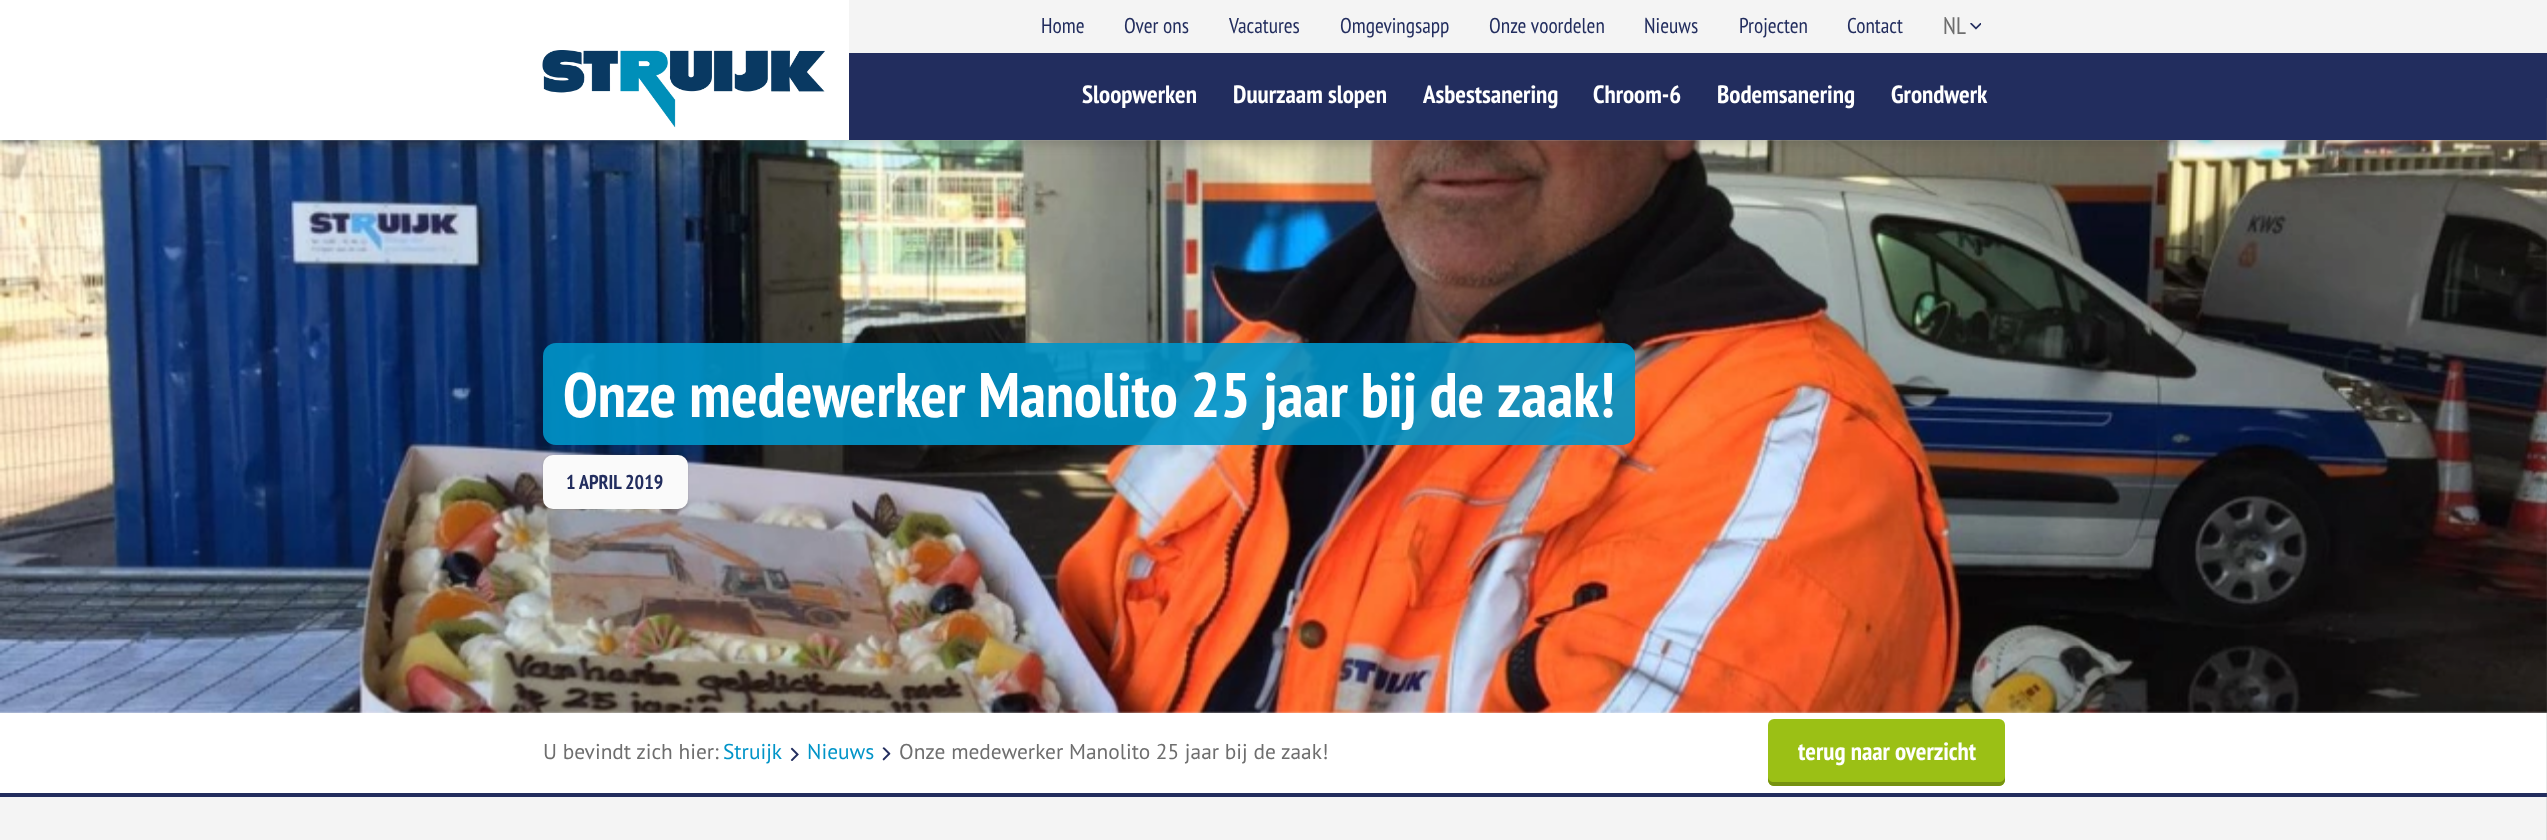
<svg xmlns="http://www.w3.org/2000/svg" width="2547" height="840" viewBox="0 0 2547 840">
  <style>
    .t1 { font: 21.4px PT Sans Narrow; fill: #222d5e; }
    .t2 { font: 24px PT Sans Narrow; fill: #6e6e6e; }
    .t3 { font: bold 25px PT Sans Narrow; fill: #fff; }
    .t4 { font: bold 62.8px PT Sans Narrow; fill: #fff; }
    .t5 { font: bold 20px PT Sans Narrow; fill: #222d5e; }
    .t6 { font: 21.4px PT Sans; fill: #6e6e6e; }
    .t7 { font: 21.4px PT Sans; fill: #0094c8; }
  </style>
  <rect width="100%" height="100%" fill="#f4f4f4"/>
  <image x="0" y="140" width="2547" height="573" href="images/3.png"/>
  <rect x="0" y="4" width="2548" height="140" fill="#32323240" filter="blur(6px)"/>
  <rect x="0" y="0" width="849" height="140" fill="#fff"/>
  <image x="542" y="50" width="283" height="78" href="images/1.png"/>
  <rect x="849" y="0" width="1698" height="53" fill="#f4f4f4"/>
  <text x="1041" y="33" class="t1">Home</text>
  <text x="1124" y="33" class="t1">Over ons</text>
  <text x="1229" y="33" class="t1">Vacatures</text>
  <text x="1340" y="33" class="t1">Omgevingsapp</text>
  <text x="1489" y="33" class="t1">Onze voordelen</text>
  <text x="1644" y="33" class="t1">Nieuws</text>
  <text x="1739" y="33" class="t1">Projecten</text>
  <text x="1847" y="33" class="t1">Contact</text>
  <text x="1943" y="34" class="t2">NL</text>
  <image x="1970" y="23" width="11" height="7" href="images/2.png"/>
  <rect x="849" y="53" width="1698" height="87" fill="#222d5e"/>
  <text x="1082" y="103" class="t3">Sloopwerken</text>
  <text x="1233" y="103" class="t3">Duurzaam slopen</text>
  <text x="1423" y="103" class="t3">Asbestsanering</text>
  <text x="1593" y="103" class="t3">Chroom-6</text>
  <text x="1717" y="103" class="t3">Bodemsanering</text>
  <text x="1891" y="103" class="t3">Grondwerk</text>
  <rect x="543" y="343" width="1092" height="102" rx="13" fill="#0094c8e6"/>
  <text x="563" y="417" class="t4">Onze medewerker Manolito 25 jaar bij de zaak!</text>
  <rect x="543" y="455" width="145" height="54" rx="10" fill="#32323224" filter="blur(1px)"/>
  <rect x="543" y="455" width="145" height="54" rx="10" fill="#fafafa"/>
  <text x="566" y="489" class="t5">1 APRIL 2019</text>
  <rect x="0" y="713" width="2547" height="80" fill="#fff"/>
  <rect x="0" y="793" width="2547" height="4" fill="#222d5e"/>
  <text x="543" y="759" class="t6">U bevindt zich hier:</text>
  <text x="723" y="759" class="t7">Struijk</text>
  <image x="790" y="747" width="9" height="14" href="images/4.png"/>
  <text x="807" y="759" class="t7">Nieuws</text>
  <image x="882" y="747" width="9" height="14" href="images/5.png"/>
  <text x="899" y="759" class="t6">Onze medewerker Manolito 25 jaar bij de zaak!</text>
  <rect x="1768" y="719" width="237" height="67" rx="6" fill="#9bc015"/>
  <path d="M1768 776V780C1768 783 1771 786 1774 786H1999C2002 786 2005 783 2005 780V776C2005 780 2002 782 1999 782H1774C1770 782 1768 780 1768 776Z" fill="#769210"/>
  <text x="1798" y="760" class="t3">terug naar overzicht</text>
  <rect x="2546" y="98" width="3" height="742" fill="#6e6e6e26" filter="blur(0.5px)"/>
</svg>
